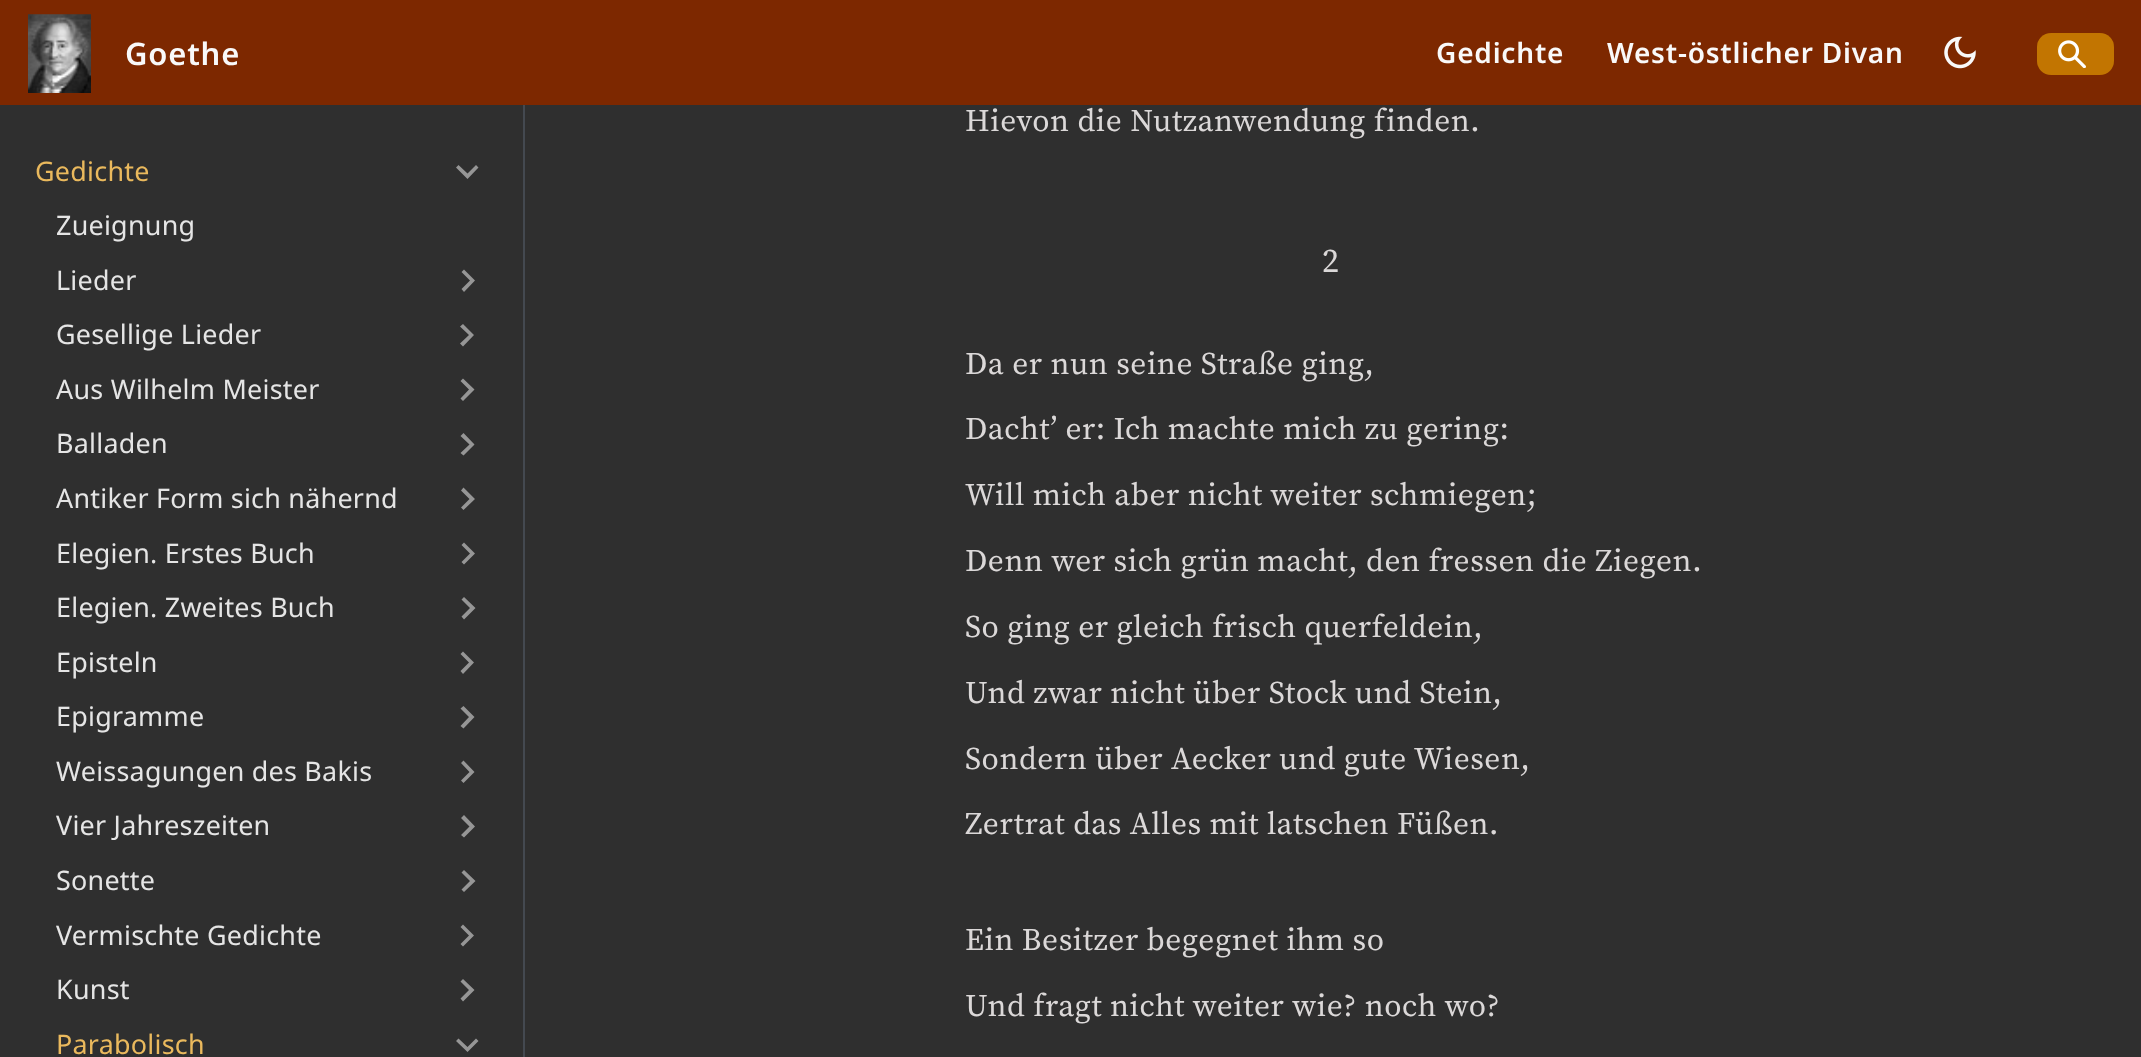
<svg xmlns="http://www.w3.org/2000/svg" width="2141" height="1057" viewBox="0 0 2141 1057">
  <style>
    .t1 { font: 600 31px Noto Sans; letter-spacing: 0.8px; fill: #f9f9f9; }
    .t2 { font: 600 28px Noto Sans; letter-spacing: 0.8px; fill: #f9f9f9; }
    .t3 { font: 26.9px Noto Sans; letter-spacing: 0.25px; fill: #eab95d; }
    .t4 { font: 26.9px Noto Sans; letter-spacing: 0.25px; fill: #e5e5e5; }
    .t5 { font: 31.4px Source Serif Pro; letter-spacing: 0.55px; fill: #dbd8d8; }
    .t6 { font: 34px Source Serif Pro; letter-spacing: 7px; fill: #dbd8d8; }
  </style>
  <rect width="100%" height="100%" fill="#2f2f2f"/>
  <rect x="523" y="103" width="2" height="954" fill="#444950"/>
  <rect x="0" y="0" width="2141" height="105" fill="#7d2800"/>
  <image x="28" y="14" width="63" height="79" href="images/1.png"/>
  <text x="125" y="65" class="t1">Goethe</text>
  <text x="1436" y="63" class="t2">Gedichte</text>
  <text x="1607" y="63" class="t2">West-östlicher Divan</text>
  <image x="1944" y="36" width="32" height="33" href="images/2.png"/>
  <rect x="2037" y="33" width="77" height="42" rx="14" fill="#c27501"/>
  <image x="2058" y="40" width="28" height="28" href="images/3.png"/>
  <text x="35" y="181" class="t3">Gedichte</text>
  <path d="M476 165L467.5 173.5L458.5 165L456 167.5L467.5 179L478.5 167.5Z" fill="#969696"/>
  <text x="56" y="235" class="t4">Zueignung</text>
  <text x="56" y="290" class="t4">Lieder</text>
  <path d="M461.5 272L470 280.5L461.5 289L464 292L475 280.5L464 269.5Z" fill="#969696"/>
  <text x="56" y="344" class="t4">Gesellige Lieder</text>
  <path d="M460 326.5L469 335L460 343.5L463 346.5L474 335L463 324Z" fill="#969696"/>
  <text x="56" y="399" class="t4">Aus Wilhelm Meister</text>
  <path d="M460.5 381L469 389.5L460.5 398.5L463 401L474.5 389.5L463 378.5Z" fill="#969696"/>
  <text x="56" y="453" class="t4">Balladen</text>
  <path d="M460.5 436L469.5 444.5L460.5 453L463.5 455.5L474.5 444.5L463.5 433Z" fill="#969696"/>
  <text x="56" y="508" class="t4">Antiker Form sich nähernd</text>
  <path d="M461 490.5L469.5 499L461 507.5L463.5 510L475 499L463.5 487.5Z" fill="#969696"/>
  <text x="56" y="563" class="t4">Elegien. Erstes Buch</text>
  <path d="M461.5 545L470 553.5L461.5 562L464 564.5L475 553.5L464 542.5Z" fill="#969696"/>
  <text x="56" y="617" class="t4">Elegien. Zweites Buch</text>
  <path d="M461.5 599.5L470 608L461.5 616.5L464 619.5L475.5 608L464 597Z" fill="#969696"/>
  <text x="56" y="672" class="t4">Episteln</text>
  <path d="M460.5 654L469 662.5L460.5 671L463 674L474 662.5L463 651.5Z" fill="#969696"/>
  <text x="56" y="726" class="t4">Epigramme</text>
  <path d="M460.5 708.5L469 717L460.5 726L463.5 728.5L474.5 717L463.5 706Z" fill="#969696"/>
  <text x="56" y="781" class="t4">Weissagungen des Bakis</text>
  <path d="M461 763L469.5 772L461 780.5L463.5 783L474.5 772L463.5 760.5Z" fill="#969696"/>
  <text x="56" y="835" class="t4">Vier Jahreszeiten</text>
  <path d="M461 818L469.5 826.5L461 835L464 837.5L475 826.5L464 815Z" fill="#969696"/>
  <text x="56" y="890" class="t4">Sonette</text>
  <path d="M461.5 872.5L470 881L461.5 889.5L464 892L475.5 881L464 870Z" fill="#969696"/>
  <text x="56" y="945" class="t4">Vermischte Gedichte</text>
  <path d="M460.5 927L469 935.5L460.5 944L463 946.5L474 935.5L463 924.5Z" fill="#969696"/>
  <text x="56" y="999" class="t4">Kunst</text>
  <path d="M460.5 981.5L469 990L460.5 998.5L463 1001.5L474.5 990L463 979Z" fill="#969696"/>
  <text x="56" y="1054" class="t3">Parabolisch</text>
  <path d="M476 1038.5L467.5 1047L458.5 1038.5L456 1041L467.5 1052L478.5 1041Z" fill="#969696"/>
  <text x="965" y="131" class="t5">Hievon die Nutzanwendung finden.</text>
  <text x="1322" y="272" class="t6">2</text>
  <text x="965" y="374" class="t5">Da er nun seine Straße ging,</text>
  <text x="965" y="439" class="t5">Dacht’ er: Ich machte mich zu gering:</text>
  <text x="965" y="505" class="t5">Will mich aber nicht weiter schmiegen;</text>
  <text x="965" y="571" class="t5">Denn wer sich grün macht, den fressen die Ziegen.</text>
  <text x="965" y="637" class="t5">So ging er gleich frisch querfeldein,</text>
  <text x="965" y="703" class="t5">Und zwar nicht über Stock und Stein,</text>
  <text x="965" y="769" class="t5">Sondern über Aecker und gute Wiesen,</text>
  <text x="965" y="834" class="t5">Zertrat das Alles mit latschen Füßen.</text>
  <text x="965" y="950" class="t5">Ein Besitzer begegnet ihm so</text>
  <text x="965" y="1016" class="t5">Und fragt nicht weiter wie? noch wo?</text>
</svg>
